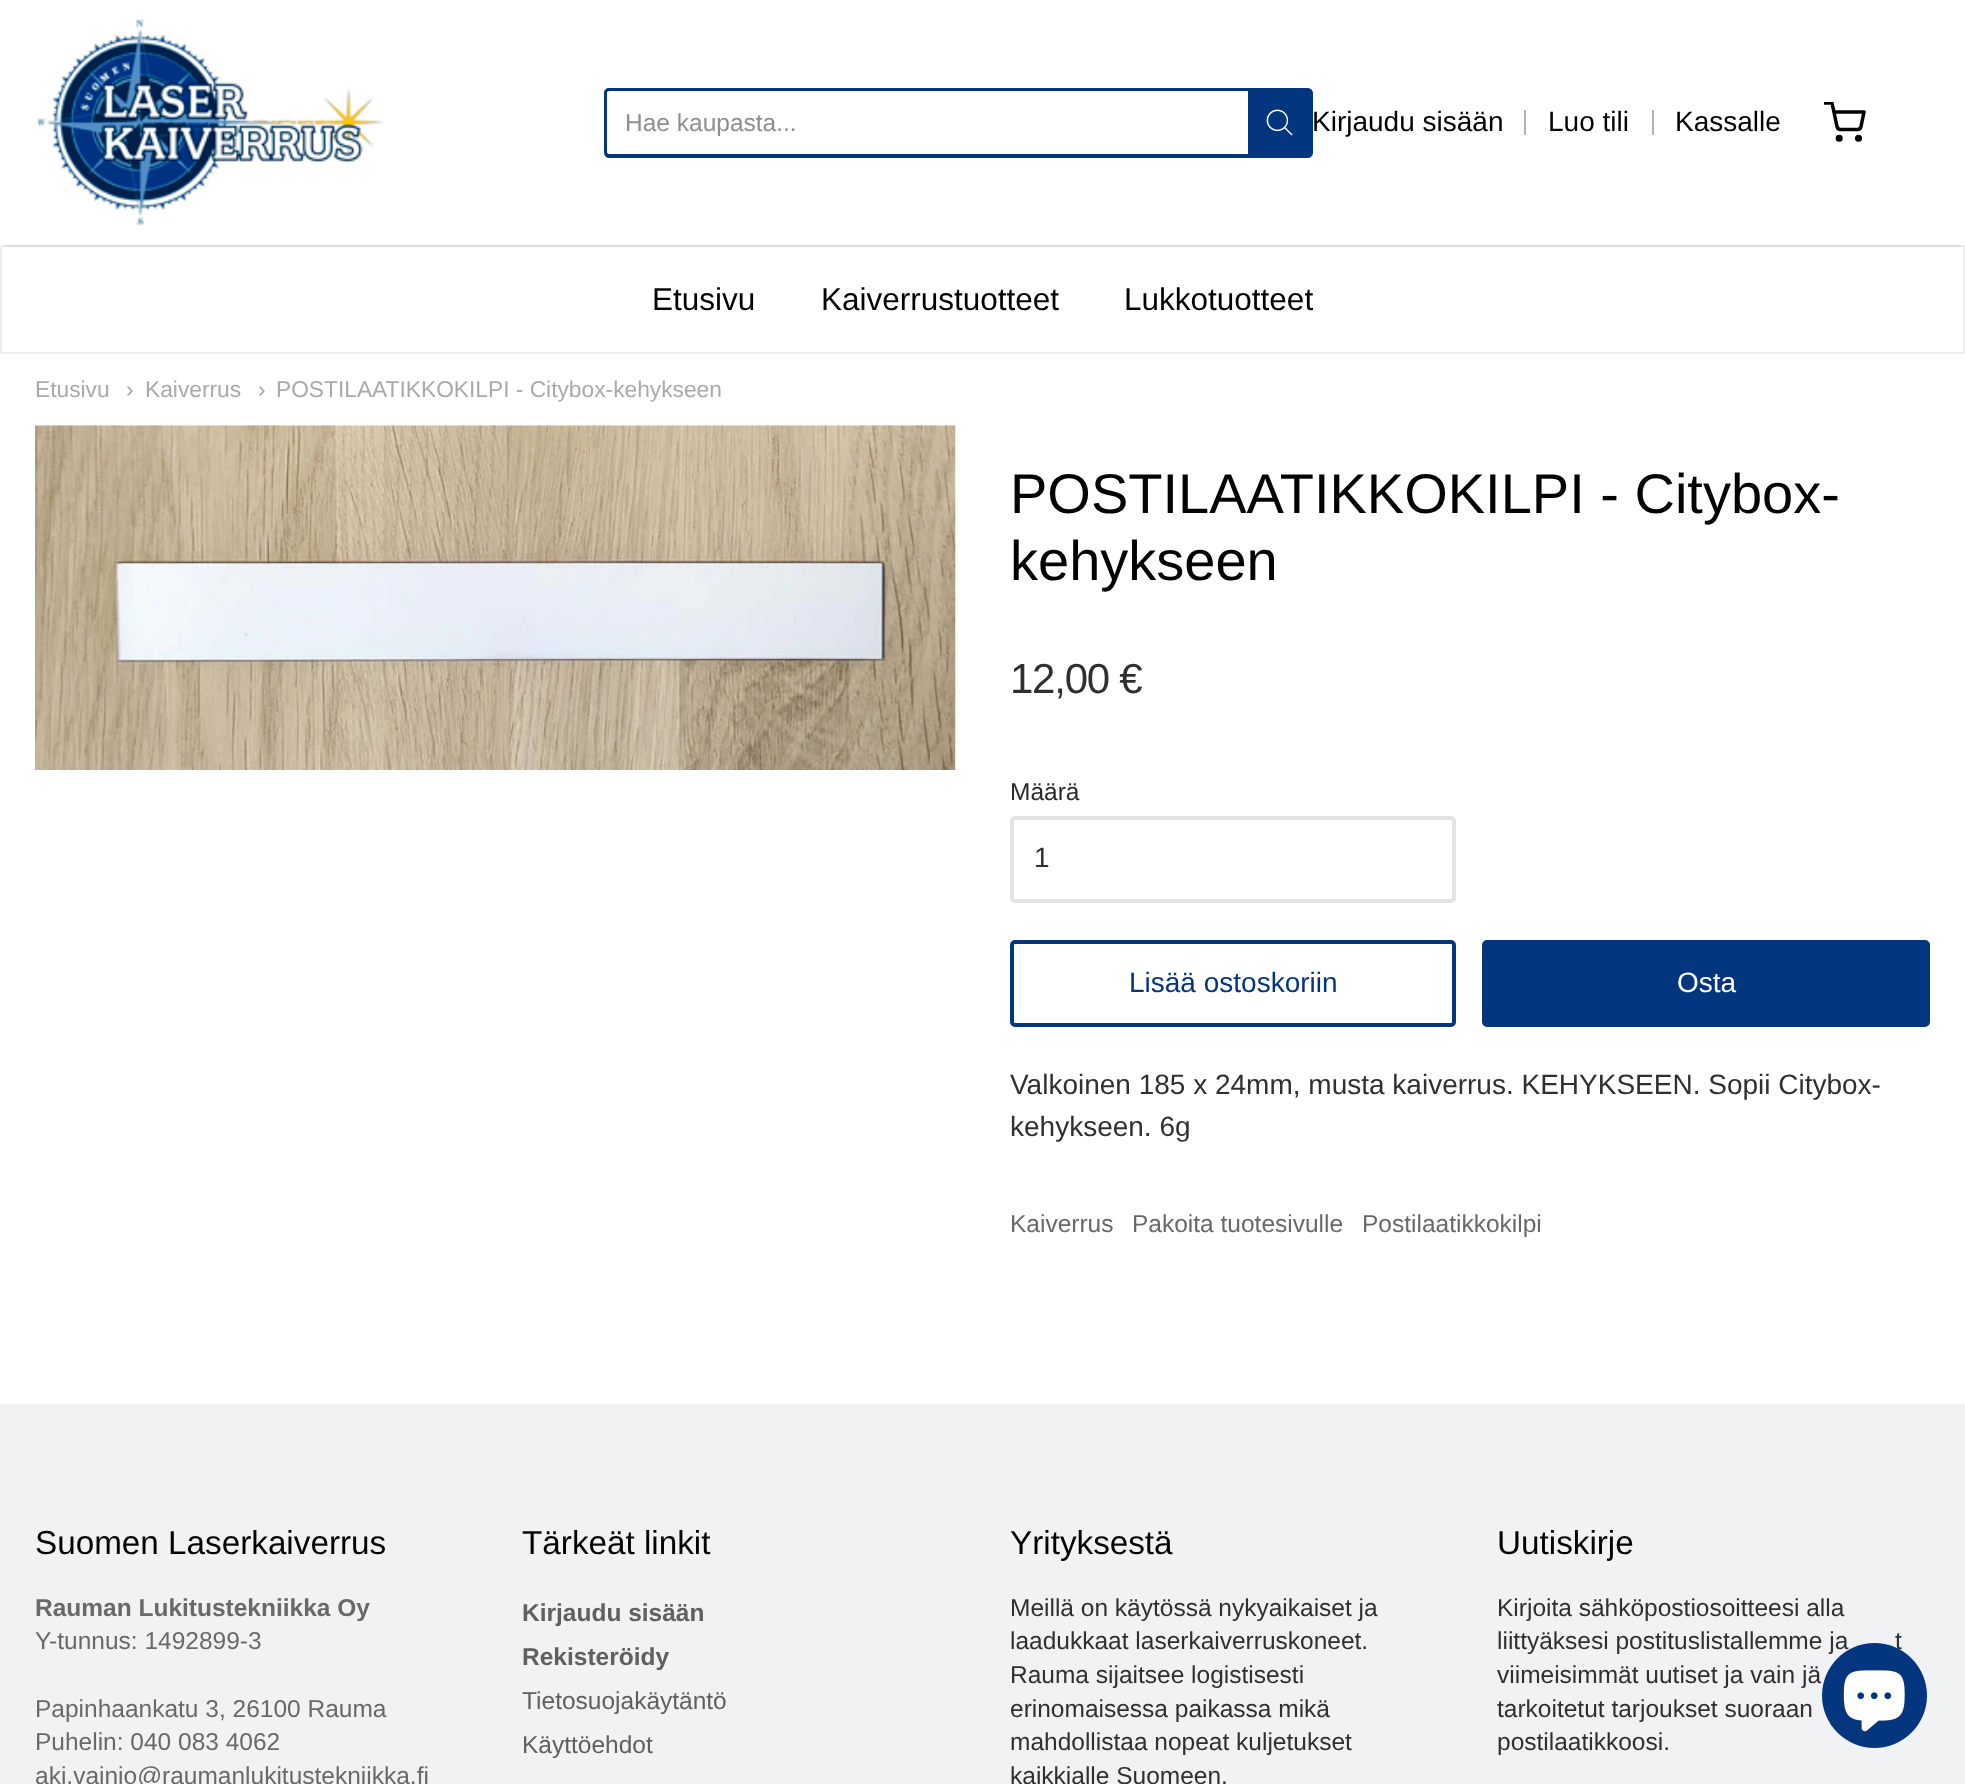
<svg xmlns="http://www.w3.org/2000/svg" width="1965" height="1784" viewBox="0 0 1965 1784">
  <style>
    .t1 { font: 24.5px Liberation Sans; fill: #8f8f8f; }
    .t2 { font: 28px Liberation Sans; fill: #030303; }
    .t3 { font: 31.5px Liberation Sans; fill: #030303; }
    .t4 { font: 22.75px Liberation Sans; fill: #a9aaaa; }
    .t5 { font: 56px Liberation Sans; fill: #030303; }
    .t6 { font: 42px Liberation Sans; letter-spacing: -1.25px; fill: #303030; }
    .t7 { font: 24.5px Liberation Sans; fill: #2a2b2b; }
    .t8 { font: 28px Liberation Sans; fill: #303030; }
    .t9 { font: 28px Liberation Sans; fill: #04367f; }
    .t10 { font: 28px Liberation Sans; fill: #fff; }
    .t11 { font: 24.5px Liberation Sans; fill: #696969; }
    .t12 { font: 33.25px Liberation Sans; fill: #030303; }
    .t13 { font: bold 24.5px Liberation Sans; fill: #696969; }
    .t14 { font: bold 24.5px Liberation Sans; fill: #606060; }
    .t15 { font: 24.5px Liberation Sans; fill: #606060; }
    .t16 { font: 24.5px Liberation Sans; fill: #303030; }
  </style>
  <defs>
    <clipPath id="clip1"><rect x="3" y="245" width="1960" height="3"/></clipPath>
    <clipPath id="clip2"><rect x="1824" y="102" width="42" height="42"/></clipPath>
  </defs>
  <rect width="100%" height="100%" fill="#fff"/>
  <rect x="1" y="246" width="1963" height="107" fill="none" stroke="#eee" stroke-width="2"/>
  <g clip-path="url(#clip1)">
    <rect x="4" y="7" width="1958" height="238" fill="#00000033" filter="blur(2px)"/>
  </g>
  <image x="36" y="19" width="347" height="207" href="images/1.png"/>
  <path d="M609 88H1248V158H609C606 158 604 155 604 152V93C604 90 606 88 609 88ZM609 91H1248V154H609C608 154 607 153 607 152V92Z" fill="#04367f" fill-rule="evenodd"/>
  <text x="625" y="131" class="t1">Hae kaupasta...</text>
  <path d="M1250 90H1308C1309.5 90 1311 91.5 1311 93V153C1311 154.5 1309.5 156 1308 156H1250Z" fill="#04367f" stroke="#04367f" stroke-width="4"/>
  <image x="1266" y="109" width="27" height="27" href="images/2.png"/>
  <text x="1312" y="131" class="t2">Kirjaudu sisään</text>
  <rect x="1524" y="110" width="2" height="25" fill="#b3b3b3"/>
  <text x="1548" y="131" class="t2">Luo tili</text>
  <rect x="1652" y="110" width="2" height="25" fill="#b3b3b3"/>
  <text x="1675" y="131" class="t2">Kassalle</text>
  <g clip-path="url(#clip2)">
    <path d="M1825 103H1832L1837 126.5C1837.5 128.5 1838.5 129.5 1840.5 129.5H1857.5C1859 129.5 1860.5 128.5 1861 126.5L1864 112H1834" fill="none" stroke="#030303" stroke-width="3.5" stroke-linecap="round" stroke-linejoin="round"/>
  </g>
  <circle cx="1839.2" cy="138.2" r="1.8" fill="none" stroke="#030303" stroke-width="3.5"/>
  <circle cx="1858.5" cy="138.2" r="1.8" fill="none" stroke="#030303" stroke-width="3.5"/>
  <text x="652" y="310" class="t3">Etusivu</text>
  <text x="821" y="310" class="t3">Kaiverrustuotteet</text>
  <text x="1124" y="310" class="t3">Lukkotuotteet</text>
  <text x="35" y="397" class="t4">Etusivu</text>
  <text x="126" y="397" class="t4">›</text>
  <text x="145" y="397" class="t4">Kaiverrus</text>
  <text x="258" y="397" class="t4">›</text>
  <text x="276" y="397" class="t4">POSTILAATIKKOKILPI - Citybox-kehykseen</text>
  <image x="35" y="425" width="921" height="345" href="images/3.png"/>
  <text x="1010" y="513" class="t5">POSTILAATIKKOKILPI - Citybox-</text>
  <text x="1010" y="580" class="t5">kehykseen</text>
  <text x="1010" y="693" class="t6">12,00 €</text>
  <text x="1010" y="800" class="t7">Määrä</text>
  <rect x="1012" y="818" width="442" height="83" rx="3" fill="none" stroke="#e1e3e4" stroke-width="4"/>
  <text x="1034" y="867" class="t8">1</text>
  <rect x="1012" y="942" width="442" height="83" rx="3" fill="none" stroke="#04367f" stroke-width="4"/>
  <text x="1129" y="992" class="t9">Lisää ostoskoriin</text>
  <rect x="1484" y="942" width="444" height="83" rx="3" fill="#04367f" stroke="#04367f" stroke-width="4"/>
  <text x="1677" y="992" class="t10">Osta</text>
  <text x="1010" y="1094" class="t8">Valkoinen 185 x 24mm, musta kaiverrus. KEHYKSEEN. Sopii Citybox-</text>
  <text x="1010" y="1136" class="t8">kehykseen. 6g</text>
  <text x="1010" y="1232" class="t11">Kaiverrus</text>
  <text x="1132" y="1232" class="t11">Pakoita tuotesivulle</text>
  <text x="1362" y="1232" class="t11">Postilaatikkokilpi</text>
  <rect x="0" y="1404" width="1965" height="380" fill="#f1f2f3"/>
  <text x="35" y="1554" class="t12">Suomen Laserkaiverrus</text>
  <text x="35" y="1616" class="t13">Rauman Lukitustekniikka Oy</text>
  <text x="35" y="1649" class="t11">Y-tunnus: 1492899-3</text>
  <text x="35" y="1717" class="t11">Papinhaankatu 3, 26100 Rauma</text>
  <text x="35" y="1750" class="t11">Puhelin: 040 083 4062</text>
  <text x="35" y="1784" class="t11">aki.vainio@raumanlukitustekniikka.fi</text>
  <text x="522" y="1554" class="t12">Tärkeät linkit</text>
  <text x="522" y="1621" class="t14">Kirjaudu sisään</text>
  <text x="522" y="1665" class="t14">Rekisteröidy</text>
  <text x="522" y="1709" class="t15">Tietosuojakäytäntö</text>
  <text x="522" y="1753" class="t15">Käyttöehdot</text>
  <text x="1010" y="1554" class="t12">Yrityksestä</text>
  <text x="1010" y="1616" class="t16">Meillä on käytössä nykyaikaiset ja</text>
  <text x="1010" y="1649" class="t16">laadukkaat laserkaiverruskoneet.</text>
  <text x="1010" y="1683" class="t16">Rauma sijaitsee logistisesti</text>
  <text x="1010" y="1717" class="t16">erinomaisessa paikassa mikä</text>
  <text x="1010" y="1750" class="t16">mahdollistaa nopeat kuljetukset</text>
  <text x="1010" y="1784" class="t16">kaikkialle Suomeen.</text>
  <text x="1497" y="1554" class="t12">Uutiskirje</text>
  <text x="1497" y="1616" class="t16">Kirjoita sähköpostiosoitteesi alla</text>
  <text x="1497" y="1649" class="t16">liittyäksesi postituslistallemme ja</text>
  <text x="1895" y="1649" class="t16">t</text>
  <text x="1497" y="1683" class="t16">viimeisimmät uutiset ja vain jä</text>
  <text x="1497" y="1717" class="t16">tarkoitetut tarjoukset suoraan</text>
  <text x="1497" y="1750" class="t16">postilaatikkoosi.</text>
  <circle cx="1874.5" cy="1695.5" r="52.5" fill="#04367f"/>
  <image x="1843" y="1670" width="62" height="62" href="images/4.png"/>
</svg>
